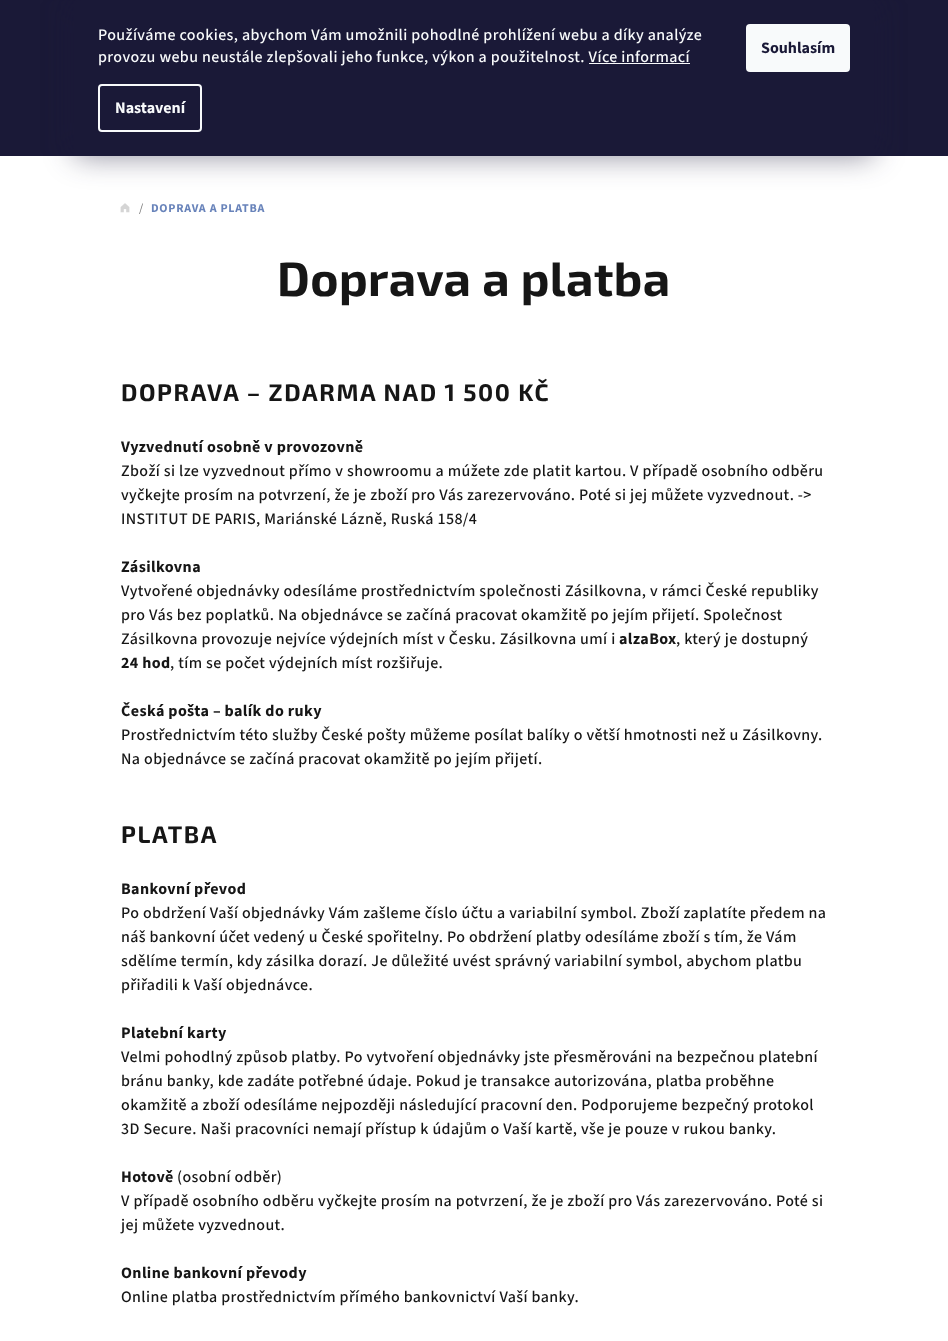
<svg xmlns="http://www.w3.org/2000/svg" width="948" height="1341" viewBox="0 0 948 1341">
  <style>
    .t1 { font: 500 16px 'Source Sans 3'; letter-spacing: 0.4px; fill: #f8fafb; }
    .t2 { font: bold 16px 'Source Sans 3'; fill: #f8fafb; }
    .t3 { font: bold 16px 'Source Sans 3'; fill: #1a1937; }
    .t4 { font: 12px 'Source Sans 3'; letter-spacing: 0.75px; fill: #747474; }
    .t5 { font: bold 12px 'Source Sans 3'; letter-spacing: 0.75px; fill: #6883ba; }
    .t6 { font: bold 48px 'Exo 2'; letter-spacing: 0.4px; fill: #161616; }
    .t7 { font: bold 24px 'Exo 2'; letter-spacing: 1.6px; fill: #161616; }
    .t8 { font: bold 16px 'Source Sans 3'; letter-spacing: 0.4px; fill: #161616; }
    .t9 { font: 500 16px 'Source Sans 3'; letter-spacing: 0.4px; fill: #161616; }
  </style>
  <defs>
    <clipPath id="clip1"><path d="M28 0H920V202H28ZM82 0H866C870.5 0 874 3.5 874 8V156H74V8C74 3.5 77.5 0 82 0Z" clip-rule="evenodd"/></clipPath>
  </defs>
  <rect width="100%" height="100%" fill="#fff"/>
  <rect x="0" y="0" width="948" height="156" fill="#1a1937"/>
  <g clip-path="url(#clip1)">
    <rect x="74" y="0" width="800" height="156" rx="8" fill="#1b193980" filter="blur(15px)"/>
  </g>
  <text x="98" y="40" class="t1">Používáme cookies, abychom Vám umožnili pohodlné prohlížení webu a díky analýze</text>
  <text x="98" y="62" class="t1">provozu webu neustále zlepšovali jeho funkce, výkon a použitelnost. Více informací</text>
  <rect x="589" y="63" width="101" height="1" fill="#f8fafb"/>
  <rect x="99" y="85" width="102" height="46" rx="3" fill="none" stroke="#f8fafb" stroke-width="2"/>
  <text x="115" y="113" class="t2">Nastavení</text>
  <rect x="746" y="24" width="104" height="48" rx="4" fill="#f8fafb"/>
  <text x="761" y="53" class="t3">Souhlasím</text>
  <image x="120" y="203" width="10" height="10" href="images/1.png"/>
  <text x="139" y="212" class="t4">/</text>
  <text x="151" y="212" class="t5">DOPRAVA A PLATBA</text>
  <text x="277" y="296" class="t6">Doprava a platba</text>
  <text x="121" y="401" class="t7">DOPRAVA – ZDARMA NAD 1 500 KČ</text>
  <text x="121" y="452" class="t8">Vyzvednutí osobně v provozovně</text>
  <text x="121" y="476" class="t9">Zboží si lze vyzvednout přímo v showroomu a múžete zde platit kartou. V případě osobního odběru</text>
  <text x="121" y="500" class="t9">vyčkejte prosím na potvrzení, že je zboží pro Vás zarezervováno. Poté si jej můžete vyzvednout. -&gt;</text>
  <text x="121" y="524" class="t9">INSTITUT DE PARIS, Mariánské Lázně, Ruská 158/4</text>
  <text x="121" y="572" class="t8">Zásilkovna</text>
  <text x="121" y="596" class="t9">Vytvořené objednávky odesíláme prostřednictvím společnosti Zásilkovna, v rámci České republiky</text>
  <text x="121" y="620" class="t9">pro Vás bez poplatků. Na objednávce se začíná pracovat okamžitě po jejím přijetí. Společnost</text>
  <text x="121" y="644" class="t9">Zásilkovna provozuje nejvíce výdejních míst v Česku. Zásilkovna umí i</text>
  <text x="619" y="644" class="t8">alzaBox</text>
  <text x="676" y="644" class="t9">, který je dostupný</text>
  <text x="121" y="668" class="t8">24 hod</text>
  <text x="170" y="668" class="t9">, tím se počet výdejních míst rozšiřuje.</text>
  <text x="121" y="716" class="t8">Česká pošta – balík do ruky</text>
  <text x="121" y="740" class="t9">Prostřednictvím této služby České pošty můžeme posílat balíky o větší hmotnosti než u Zásilkovny.</text>
  <text x="121" y="764" class="t9">Na objednávce se začíná pracovat okamžitě po jejím přijetí.</text>
  <text x="121" y="843" class="t7">PLATBA</text>
  <text x="121" y="894" class="t8">Bankovní převod</text>
  <text x="121" y="918" class="t9">Po obdržení Vaší objednávky Vám zašleme číslo účtu a variabilní symbol. Zboží zaplatíte předem na</text>
  <text x="121" y="942" class="t9">náš bankovní účet vedený u České spořitelny. Po obdržení platby odesíláme zboží s tím, že Vám</text>
  <text x="121" y="966" class="t9">sdělíme termín, kdy zásilka dorazí. Je důležité uvést správný variabilní symbol, abychom platbu</text>
  <text x="121" y="990" class="t9">přiřadili k Vaší objednávce.</text>
  <text x="121" y="1038" class="t8">Platební karty</text>
  <text x="121" y="1062" class="t9">Velmi pohodlný způsob platby. Po vytvoření objednávky jste přesměrováni na bezpečnou platební</text>
  <text x="121" y="1086" class="t9">bránu banky, kde zadáte potřebné údaje. Pokud je transakce autorizována, platba proběhne</text>
  <text x="121" y="1110" class="t9">okamžitě a zboží odesíláme nejpozději následující pracovní den. Podporujeme bezpečný protokol</text>
  <text x="121" y="1134" class="t9">3D Secure. Naši pracovníci nemají přístup k údajům o Vaší kartě, vše je pouze v rukou banky.</text>
  <text x="121" y="1182" class="t8">Hotově</text>
  <text x="177" y="1182" class="t9">(osobní odběr)</text>
  <text x="121" y="1206" class="t9">V případě osobního odběru vyčkejte prosím na potvrzení, že je zboží pro Vás zarezervováno. Poté si</text>
  <text x="121" y="1230" class="t9">jej můžete vyzvednout.</text>
  <text x="121" y="1278" class="t8">Online bankovní převody</text>
  <text x="121" y="1302" class="t9">Online platba prostřednictvím přímého bankovnictví Vaší banky.</text>
</svg>
